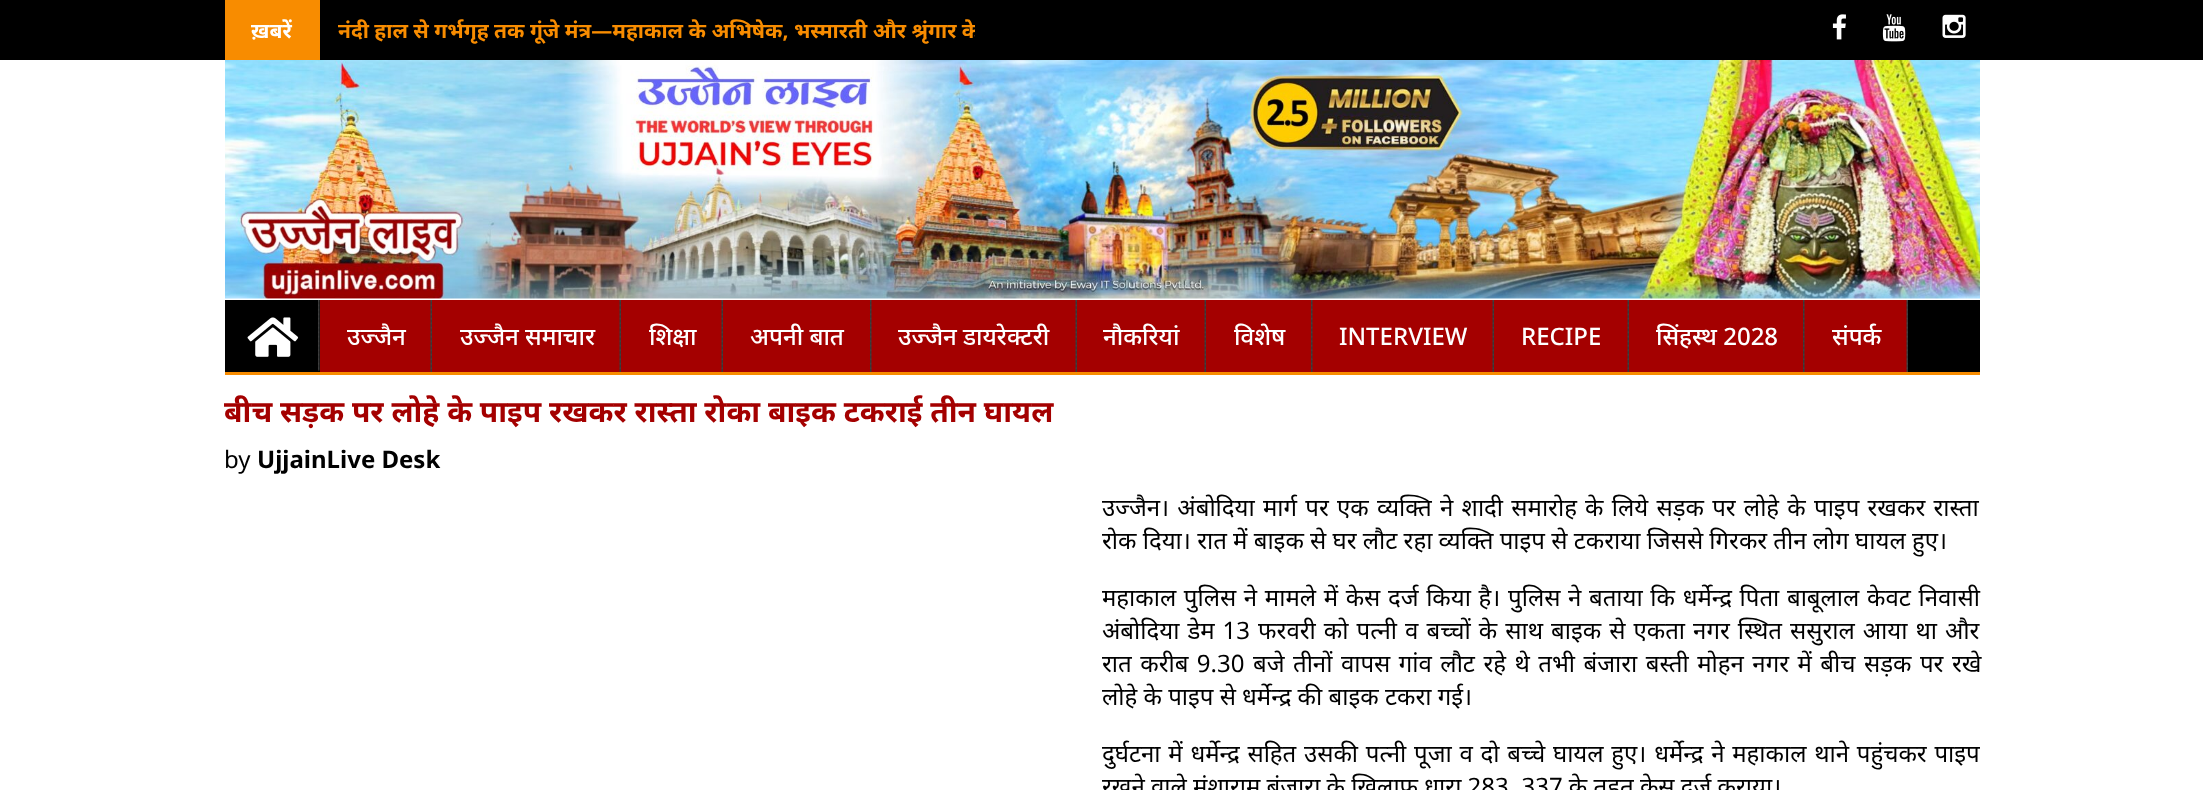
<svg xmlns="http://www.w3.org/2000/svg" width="2203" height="790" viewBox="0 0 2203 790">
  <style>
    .t1 { font: bold 21px Noto Sans; fill: #fff; }
    .t2 { font: bold 21px Noto Sans; fill: #f88c00; }
    .t3 { font: 500 24px Noto Sans; fill: #fff; }
    .t4 { font: bold 30px Noto Sans; fill: #a40000; }
    .t5 { font: 24px Noto Sans; fill: #000; }
    .t6 { font: bold 24px Noto Sans; fill: #000; }
  </style>
  <defs>
    <clipPath id="clip1"><rect x="320" y="0" width="655" height="60"/></clipPath>
  </defs>
  <rect width="100%" height="100%" fill="#fff"/>
  <rect x="0" y="0" width="2203" height="60" fill="#000"/>
  <rect x="225" y="0" width="95" height="60" fill="#f88c00"/>
  <text x="251" y="38" class="t1">ख़बरें</text>
  <g clip-path="url(#clip1)">
    <text x="338" y="38" class="t2">नंदी हाल से गर्भगृह तक गूंजे मंत्र—महाकाल के अभिषेक, भस्मारती और श्रृंगार के</text>
  </g>
  <image x="1832" y="14" width="14" height="26" href="images/1.png"/>
  <image x="1882" y="14" width="24" height="28" href="images/2.png"/>
  <image x="1942" y="14" width="24" height="24" href="images/3.png"/>
  <image x="225" y="60" width="1755" height="239" href="images/4.png"/>
  <rect x="225" y="300" width="1755" height="72" fill="#000"/>
  <rect x="225" y="372" width="1755" height="3" fill="#f88c00"/>
  <image x="318" y="300" width="2" height="71" href="images/5.png"/>
  <image x="247" y="317" width="52" height="40" href="images/6.png"/>
  <rect x="320" y="300" width="111" height="72" fill="#a40000"/>
  <image x="430" y="300" width="2" height="72" href="images/7.png"/>
  <text x="347" y="345" class="t3">उज्जैन</text>
  <rect x="432" y="300" width="188" height="72" fill="#a40000"/>
  <image x="619" y="300" width="2" height="72" href="images/8.png"/>
  <text x="460" y="345" class="t3">उज्जैन समाचार</text>
  <rect x="621" y="300" width="101" height="72" fill="#a40000"/>
  <image x="721" y="300" width="2" height="72" href="images/9.png"/>
  <text x="649" y="345" class="t3">शिक्षा</text>
  <rect x="723" y="300" width="353" height="72" fill="#a40000"/>
  <image x="870" y="300" width="2" height="72" href="images/10.png"/>
  <text x="750" y="345" class="t3">अपनी बात</text>
  <image x="1075" y="300" width="2" height="72" href="images/11.png"/>
  <text x="898" y="345" class="t3">उज्जैन डायरेक्टरी</text>
  <rect x="1077" y="300" width="128" height="72" fill="#a40000"/>
  <image x="1204" y="300" width="2" height="72" href="images/12.png"/>
  <text x="1103" y="345" class="t3">नौकरियां</text>
  <rect x="1206" y="300" width="287" height="72" fill="#a40000"/>
  <image x="1311" y="300" width="2" height="72" href="images/13.png"/>
  <text x="1234" y="345" class="t3">विशेष</text>
  <image x="1492" y="300" width="2" height="72" href="images/14.png"/>
  <text x="1339" y="345" class="t3">INTERVIEW</text>
  <rect x="1494" y="300" width="134" height="72" fill="#a40000"/>
  <image x="1627" y="300" width="2" height="72" href="images/15.png"/>
  <text x="1521" y="345" class="t3">RECIPE</text>
  <rect x="1629" y="300" width="278" height="72" fill="#a40000"/>
  <image x="1803" y="300" width="2" height="72" href="images/16.png"/>
  <text x="1656" y="345" class="t3">सिंहस्थ 2028</text>
  <image x="1906" y="300" width="2" height="72" href="images/17.png"/>
  <text x="1832" y="345" class="t3">संपर्क</text>
  <text x="224" y="422" class="t4">बीच सड़क पर लोहे के पाइप रखकर रास्ता रोका बाइक टकराई तीन घायल</text>
  <text x="224" y="468" class="t5">by</text>
  <text x="257" y="468" class="t6">UjjainLive Desk</text>
  <text x="1102" y="516" word-spacing="2" class="t5">उज्जैन। अंबोदिया मार्ग पर एक व्यक्ति ने शादी समारोह के लिये सड़क पर लोहे के पाइप रखकर रास्ता</text>
  <text x="1102" y="549" class="t5">रोक दिया। रात में बाइक से घर लौट रहा व्यक्ति पाइप से टकराया जिससे गिरकर तीन लोग घायल हुए।</text>
  <text x="1102" y="606" word-spacing="1.4" class="t5">महाकाल पुलिस ने मामले में केस दर्ज किया है। पुलिस ने बताया कि धर्मेन्द्र पिता बाबूलाल केवट निवासी</text>
  <text x="1102" y="639" word-spacing="1.8" class="t5">अंबोदिया डेम 13 फरवरी को पत्नी व बच्चों के साथ बाइक से एकता नगर स्थित ससुराल आया था और</text>
  <text x="1102" y="672" word-spacing="2.25" class="t5">रात करीब 9.30 बजे तीनों वापस गांव लौट रहे थे तभी बंजारा बस्ती मोहन नगर में बीच सड़क पर रखे</text>
  <text x="1102" y="705" class="t5">लोहे के पाइप से धर्मेन्द्र की बाइक टकरा गई।</text>
  <text x="1102" y="762" word-spacing="1.5" class="t5">दुर्घटना में धर्मेन्द्र सहित उसकी पत्नी पूजा व दो बच्चे घायल हुए। धर्मेन्द्र ने महाकाल थाने पहुंचकर पाइप</text>
  <text x="1102" y="795" class="t5">रखने वाले मंशाराम बंजारा के खिलाफ धारा 283, 337 के तहत केस दर्ज कराया।</text>
</svg>
